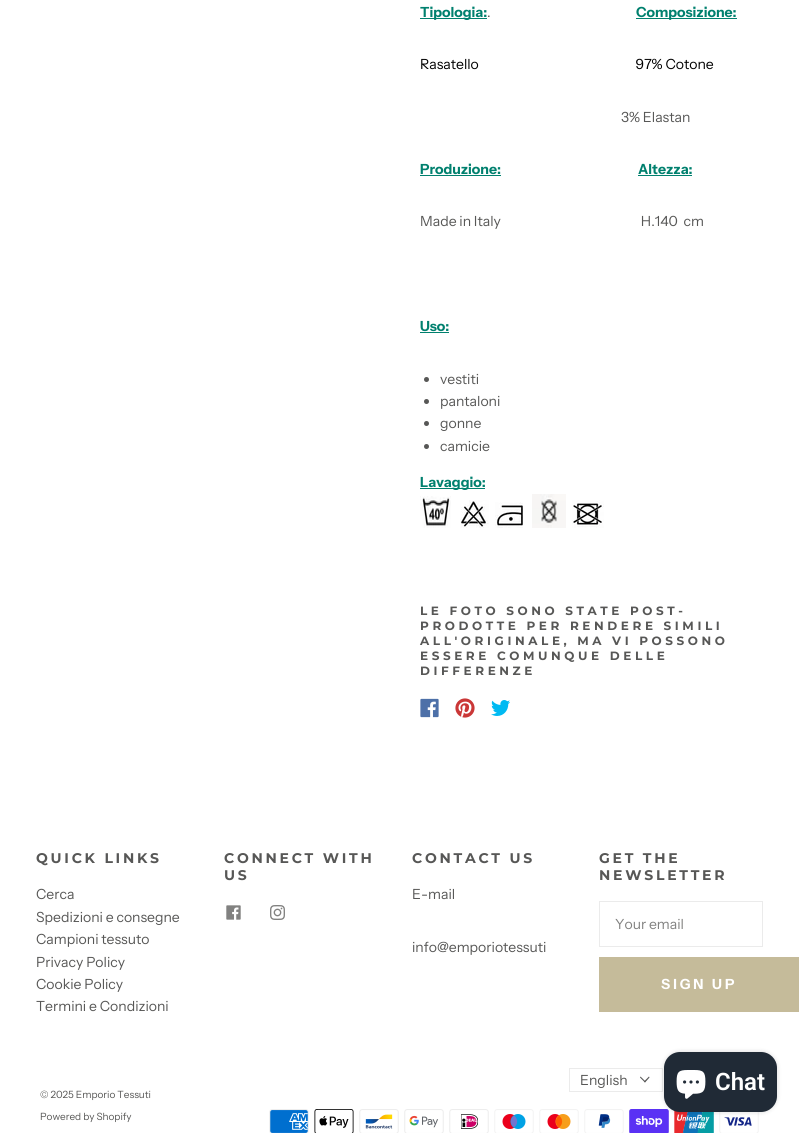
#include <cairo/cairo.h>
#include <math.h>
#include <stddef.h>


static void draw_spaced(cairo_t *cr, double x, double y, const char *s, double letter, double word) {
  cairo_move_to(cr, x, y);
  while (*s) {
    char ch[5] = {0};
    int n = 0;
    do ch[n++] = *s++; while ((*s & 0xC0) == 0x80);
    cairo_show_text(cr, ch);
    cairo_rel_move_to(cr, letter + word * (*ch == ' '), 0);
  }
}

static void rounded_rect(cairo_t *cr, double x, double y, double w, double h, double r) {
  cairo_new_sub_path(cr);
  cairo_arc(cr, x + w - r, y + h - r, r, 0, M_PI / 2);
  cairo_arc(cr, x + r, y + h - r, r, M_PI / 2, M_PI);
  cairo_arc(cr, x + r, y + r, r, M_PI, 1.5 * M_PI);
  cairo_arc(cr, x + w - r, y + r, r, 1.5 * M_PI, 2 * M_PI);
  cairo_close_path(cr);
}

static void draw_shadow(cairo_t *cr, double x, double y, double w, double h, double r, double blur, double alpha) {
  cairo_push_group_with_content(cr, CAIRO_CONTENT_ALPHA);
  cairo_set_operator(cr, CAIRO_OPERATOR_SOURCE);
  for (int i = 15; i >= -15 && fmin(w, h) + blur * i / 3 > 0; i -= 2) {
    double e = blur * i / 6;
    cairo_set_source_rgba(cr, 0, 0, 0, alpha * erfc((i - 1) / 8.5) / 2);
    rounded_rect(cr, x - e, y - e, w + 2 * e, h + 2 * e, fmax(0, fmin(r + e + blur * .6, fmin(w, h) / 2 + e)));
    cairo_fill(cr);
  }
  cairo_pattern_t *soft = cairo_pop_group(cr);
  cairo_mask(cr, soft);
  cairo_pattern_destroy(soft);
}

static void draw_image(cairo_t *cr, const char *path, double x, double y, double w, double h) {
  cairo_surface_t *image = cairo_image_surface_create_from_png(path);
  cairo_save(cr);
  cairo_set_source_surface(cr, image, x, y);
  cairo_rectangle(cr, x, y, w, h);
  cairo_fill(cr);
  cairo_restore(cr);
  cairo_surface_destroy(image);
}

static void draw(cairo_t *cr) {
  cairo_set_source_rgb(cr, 1, 1, 1);
  cairo_paint(cr);
  cairo_set_source_rgb(cr, 0, 128 / 255.0, 110 / 255.0);
  cairo_rectangle(cr, 420, 18, 67, 1);
  cairo_fill(cr);
  cairo_rectangle(cr, 636, 18, 101, 1);
  cairo_fill(cr);
  cairo_rectangle(cr, 420, 175, 81, 1);
  cairo_fill(cr);
  cairo_rectangle(cr, 638, 175, 54, 1);
  cairo_fill(cr);
  cairo_rectangle(cr, 420, 332, 29, 1);
  cairo_fill(cr);
  cairo_set_source_rgb(cr, 87 / 255.0, 87 / 255.0, 86 / 255.0);
  cairo_arc(cr, 426.5, 379.5, 2.5, 0, 2 * M_PI);
  cairo_fill(cr);
  cairo_arc(cr, 426.5, 401.5, 2.5, 0, 2 * M_PI);
  cairo_fill(cr);
  cairo_arc(cr, 426.5, 423.5, 2.5, 0, 2 * M_PI);
  cairo_fill(cr);
  cairo_arc(cr, 426.5, 446.5, 2.5, 0, 2 * M_PI);
  cairo_fill(cr);
  cairo_set_source_rgb(cr, 0, 128 / 255.0, 110 / 255.0);
  cairo_rectangle(cr, 420, 488, 65, 1);
  cairo_fill(cr);
  draw_image(cr, "images/1.png", 420, 496, 31, 32);
  draw_image(cr, "images/2.png", 460, 500, 29, 28);
  draw_image(cr, "images/3.png", 495, 502, 28, 26);
  draw_image(cr, "images/4.png", 532, 494, 34, 34);
  draw_image(cr, "images/5.png", 572, 500, 32, 28);
  draw_image(cr, "images/6.png", 420, 698, 19, 20);
  draw_image(cr, "images/7.png", 455, 698, 20, 20);
  draw_image(cr, "images/8.png", 491, 700, 19, 16);
  draw_image(cr, "images/9.png", 226, 905, 15, 15);
  draw_image(cr, "images/10.png", 270, 905, 15, 15);
  cairo_rectangle(cr, 599.5, 901.5, 163, 45);
  cairo_set_source_rgb(cr, 235 / 255.0, 235 / 255.0, 235 / 255.0);
  cairo_set_line_width(cr, 1);
  cairo_stroke(cr);
  cairo_set_source_rgb(cr, 197 / 255.0, 187 / 255.0, 154 / 255.0);
  cairo_rectangle(cr, 599, 957, 200, 55);
  cairo_fill(cr);
  cairo_rectangle(cr, 569.5, 1068.5, 93, 23);
  cairo_set_source_rgb(cr, 235 / 255.0, 235 / 255.0, 235 / 255.0);
  cairo_stroke(cr);
  cairo_set_source_rgb(cr, 87 / 255.0, 87 / 255.0, 86 / 255.0);
  cairo_new_path(cr);
  cairo_move_to(cr, 649, 1076.5);
  cairo_line_to(cr, 649.5, 1077.5);
  cairo_line_to(cr, 645, 1082.5);
  cairo_line_to(cr, 644, 1081.5);
  cairo_close_path(cr);
  cairo_fill(cr);
  cairo_new_path(cr);
  cairo_move_to(cr, 640.5, 1076.5);
  cairo_line_to(cr, 645.5, 1081.5);
  cairo_line_to(cr, 645, 1082.5);
  cairo_line_to(cr, 640, 1077.5);
  cairo_close_path(cr);
  cairo_fill(cr);
  draw_image(cr, "images/11.png", 269, 1109, 40, 24);
  draw_image(cr, "images/12.png", 314, 1109, 40, 24);
  draw_image(cr, "images/13.png", 359, 1109, 40, 24);
  draw_image(cr, "images/14.png", 404, 1109, 40, 24);
  draw_image(cr, "images/15.png", 449, 1109, 40, 24);
  draw_image(cr, "images/16.png", 494, 1109, 40, 24);
  draw_image(cr, "images/17.png", 539, 1109, 40, 24);
  draw_image(cr, "images/18.png", 584, 1109, 40, 24);
  draw_image(cr, "images/19.png", 629, 1109, 40, 24);
  draw_image(cr, "images/20.png", 674, 1110, 40, 23);
  draw_image(cr, "images/21.png", 719, 1112, 40, 21);
  cairo_set_source_rgb(cr, 0, 0, 0);
  draw_shadow(cr, 664, 1052, 113, 60, 16, 2.5, 0.15);
  cairo_set_source_rgb(cr, 32 / 255.0, 42 / 255.0, 54 / 255.0);
  rounded_rect(cr, 664, 1052, 113, 60, 16);
  cairo_fill(cr);
  draw_image(cr, "images/22.png", 676, 1070, 30, 29);
  cairo_select_font_face(cr, "Instrument Sans", CAIRO_FONT_SLANT_NORMAL, CAIRO_FONT_WEIGHT_BOLD);
  cairo_set_font_size(cr, 14);
  cairo_set_source_rgb(cr, 0, 128 / 255.0, 110 / 255.0);
  cairo_move_to(cr, 420, 17);
  cairo_show_text(cr, "Tipologia:");
  cairo_select_font_face(cr, "Instrument Sans", CAIRO_FONT_SLANT_NORMAL, CAIRO_FONT_WEIGHT_NORMAL);
  cairo_set_source_rgb(cr, 87 / 255.0, 87 / 255.0, 86 / 255.0);
  cairo_move_to(cr, 487, 17);
  cairo_show_text(cr, ".");
  cairo_select_font_face(cr, "Instrument Sans", CAIRO_FONT_SLANT_NORMAL, CAIRO_FONT_WEIGHT_BOLD);
  cairo_set_source_rgb(cr, 0, 128 / 255.0, 110 / 255.0);
  cairo_move_to(cr, 636, 17);
  cairo_show_text(cr, "Composizione:");
  cairo_select_font_face(cr, "Instrument Sans", CAIRO_FONT_SLANT_NORMAL, CAIRO_FONT_WEIGHT_NORMAL);
  cairo_set_source_rgb(cr, 0, 0, 0);
  cairo_move_to(cr, 420, 69);
  cairo_show_text(cr, "Rasatello                                                        97% Cotone");
  cairo_set_source_rgb(cr, 87 / 255.0, 87 / 255.0, 86 / 255.0);
  cairo_move_to(cr, 621, 122);
  cairo_show_text(cr, "3% Elastan");
  cairo_select_font_face(cr, "Instrument Sans", CAIRO_FONT_SLANT_NORMAL, CAIRO_FONT_WEIGHT_BOLD);
  cairo_set_source_rgb(cr, 0, 128 / 255.0, 110 / 255.0);
  cairo_move_to(cr, 420, 174);
  cairo_show_text(cr, "Produzione:");
  cairo_move_to(cr, 638, 174);
  cairo_show_text(cr, "Altezza:");
  cairo_select_font_face(cr, "Instrument Sans", CAIRO_FONT_SLANT_NORMAL, CAIRO_FONT_WEIGHT_NORMAL);
  cairo_set_source_rgb(cr, 87 / 255.0, 87 / 255.0, 86 / 255.0);
  cairo_move_to(cr, 420, 226);
  cairo_show_text(cr, "Made in Italy                                                  H.140  cm");
  cairo_select_font_face(cr, "Instrument Sans", CAIRO_FONT_SLANT_NORMAL, CAIRO_FONT_WEIGHT_BOLD);
  cairo_set_source_rgb(cr, 0, 128 / 255.0, 110 / 255.0);
  cairo_move_to(cr, 420, 331);
  cairo_show_text(cr, "Uso:");
  cairo_select_font_face(cr, "Instrument Sans", CAIRO_FONT_SLANT_NORMAL, CAIRO_FONT_WEIGHT_NORMAL);
  cairo_set_source_rgb(cr, 87 / 255.0, 87 / 255.0, 86 / 255.0);
  cairo_move_to(cr, 440, 384);
  cairo_show_text(cr, "vestiti");
  cairo_move_to(cr, 440, 406);
  cairo_show_text(cr, "pantaloni");
  cairo_move_to(cr, 440, 428);
  cairo_show_text(cr, "gonne");
  cairo_move_to(cr, 440, 451);
  cairo_show_text(cr, "camicie");
  cairo_select_font_face(cr, "Instrument Sans", CAIRO_FONT_SLANT_NORMAL, CAIRO_FONT_WEIGHT_BOLD);
  cairo_set_source_rgb(cr, 0, 128 / 255.0, 110 / 255.0);
  cairo_move_to(cr, 420, 487);
  cairo_show_text(cr, "Lavaggio:");
  cairo_select_font_face(cr, "Montserrat", CAIRO_FONT_SLANT_NORMAL, CAIRO_FONT_WEIGHT_BOLD);
  cairo_set_font_size(cr, 12);
  cairo_set_source_rgb(cr, 87 / 255.0, 87 / 255.0, 86 / 255.0);
  draw_spaced(cr, 420, 615, "LE FOTO SONO STATE POST-", 3.6, 0);
  draw_spaced(cr, 420, 630, "PRODOTTE PER RENDERE SIMILI", 3.6, 0);
  draw_spaced(cr, 420, 645, "ALL'ORIGINALE, MA VI POSSONO", 3.6, 0);
  draw_spaced(cr, 420, 660, "ESSERE COMUNQUE DELLE", 3.6, 0);
  draw_spaced(cr, 420, 675, "DIFFERENZE", 3.6, 0);
  cairo_set_font_size(cr, 14);
  draw_spaced(cr, 36, 863, "QUICK LINKS", 2.75, 0);
  cairo_select_font_face(cr, "Instrument Sans", CAIRO_FONT_SLANT_NORMAL, CAIRO_FONT_WEIGHT_NORMAL);
  cairo_move_to(cr, 36, 899);
  cairo_show_text(cr, "Cerca");
  cairo_move_to(cr, 36, 922);
  cairo_show_text(cr, "Spedizioni e consegne");
  cairo_move_to(cr, 36, 944);
  cairo_show_text(cr, "Campioni tessuto");
  cairo_move_to(cr, 36, 967);
  cairo_show_text(cr, "Privacy Policy");
  cairo_move_to(cr, 36, 989);
  cairo_show_text(cr, "Cookie Policy");
  cairo_move_to(cr, 36, 1011);
  cairo_show_text(cr, "Termini e Condizioni");
  cairo_select_font_face(cr, "Montserrat", CAIRO_FONT_SLANT_NORMAL, CAIRO_FONT_WEIGHT_BOLD);
  draw_spaced(cr, 224, 863, "CONNECT WITH", 2.75, 0);
  draw_spaced(cr, 224, 880, "US", 2.75, 0);
  draw_spaced(cr, 412, 863, "CONTACT US", 2.75, 0);
  cairo_select_font_face(cr, "Instrument Sans", CAIRO_FONT_SLANT_NORMAL, CAIRO_FONT_WEIGHT_NORMAL);
  cairo_move_to(cr, 412, 899);
  cairo_show_text(cr, "E-mail");
  cairo_move_to(cr, 412, 952);
  cairo_show_text(cr, "info@emporiotessuti");
  cairo_select_font_face(cr, "Montserrat", CAIRO_FONT_SLANT_NORMAL, CAIRO_FONT_WEIGHT_BOLD);
  draw_spaced(cr, 599, 863, "GET THE", 2.75, 0);
  draw_spaced(cr, 599, 880, "NEWSLETTER", 2.75, 0);
  cairo_select_font_face(cr, "Instrument Sans", CAIRO_FONT_SLANT_NORMAL, CAIRO_FONT_WEIGHT_NORMAL);
  cairo_set_source_rgb(cr, 129 / 255.0, 129 / 255.0, 128 / 255.0);
  cairo_move_to(cr, 615, 929);
  cairo_show_text(cr, "Your email");
  cairo_select_font_face(cr, "Instrument Sans", CAIRO_FONT_SLANT_NORMAL, CAIRO_FONT_WEIGHT_BOLD);
  cairo_set_source_rgb(cr, 1, 1, 1);
  draw_spaced(cr, 661, 989, "SIGN UP", 3, 0);
  cairo_select_font_face(cr, "Instrument Sans", CAIRO_FONT_SLANT_NORMAL, CAIRO_FONT_WEIGHT_NORMAL);
  cairo_set_source_rgb(cr, 87 / 255.0, 87 / 255.0, 86 / 255.0);
  cairo_move_to(cr, 580, 1085);
  cairo_show_text(cr, "English");
  cairo_set_font_size(cr, 10);
  cairo_move_to(cr, 40, 1098);
  cairo_show_text(cr, "© 2025 Emporio Tessuti");
  cairo_move_to(cr, 40, 1120);
  cairo_show_text(cr, "Powered by Shopify");
  cairo_select_font_face(cr, "Roboto SemiBold", CAIRO_FONT_SLANT_NORMAL, CAIRO_FONT_WEIGHT_NORMAL);
  cairo_set_font_size(cr, 24);
  cairo_set_source_rgb(cr, 1, 1, 1);
  cairo_move_to(cr, 715, 1090);
  cairo_show_text(cr, "Chat");
}

int main(void) {
  cairo_surface_t *surface = cairo_image_surface_create(CAIRO_FORMAT_RGB24, 799, 1133);
  cairo_t *cr = cairo_create(surface);
  cairo_font_options_t *options = cairo_font_options_create();
  cairo_font_options_set_hint_metrics(options, CAIRO_HINT_METRICS_OFF);
  cairo_font_options_set_hint_style(options, CAIRO_HINT_STYLE_NONE);
  cairo_set_font_options(cr, options);
  cairo_set_miter_limit(cr, 4);
  draw(cr);
  cairo_surface_write_to_png(surface, "out.png");
  cairo_font_options_destroy(options);
  cairo_destroy(cr);
  cairo_surface_destroy(surface);
  return 0;
}
